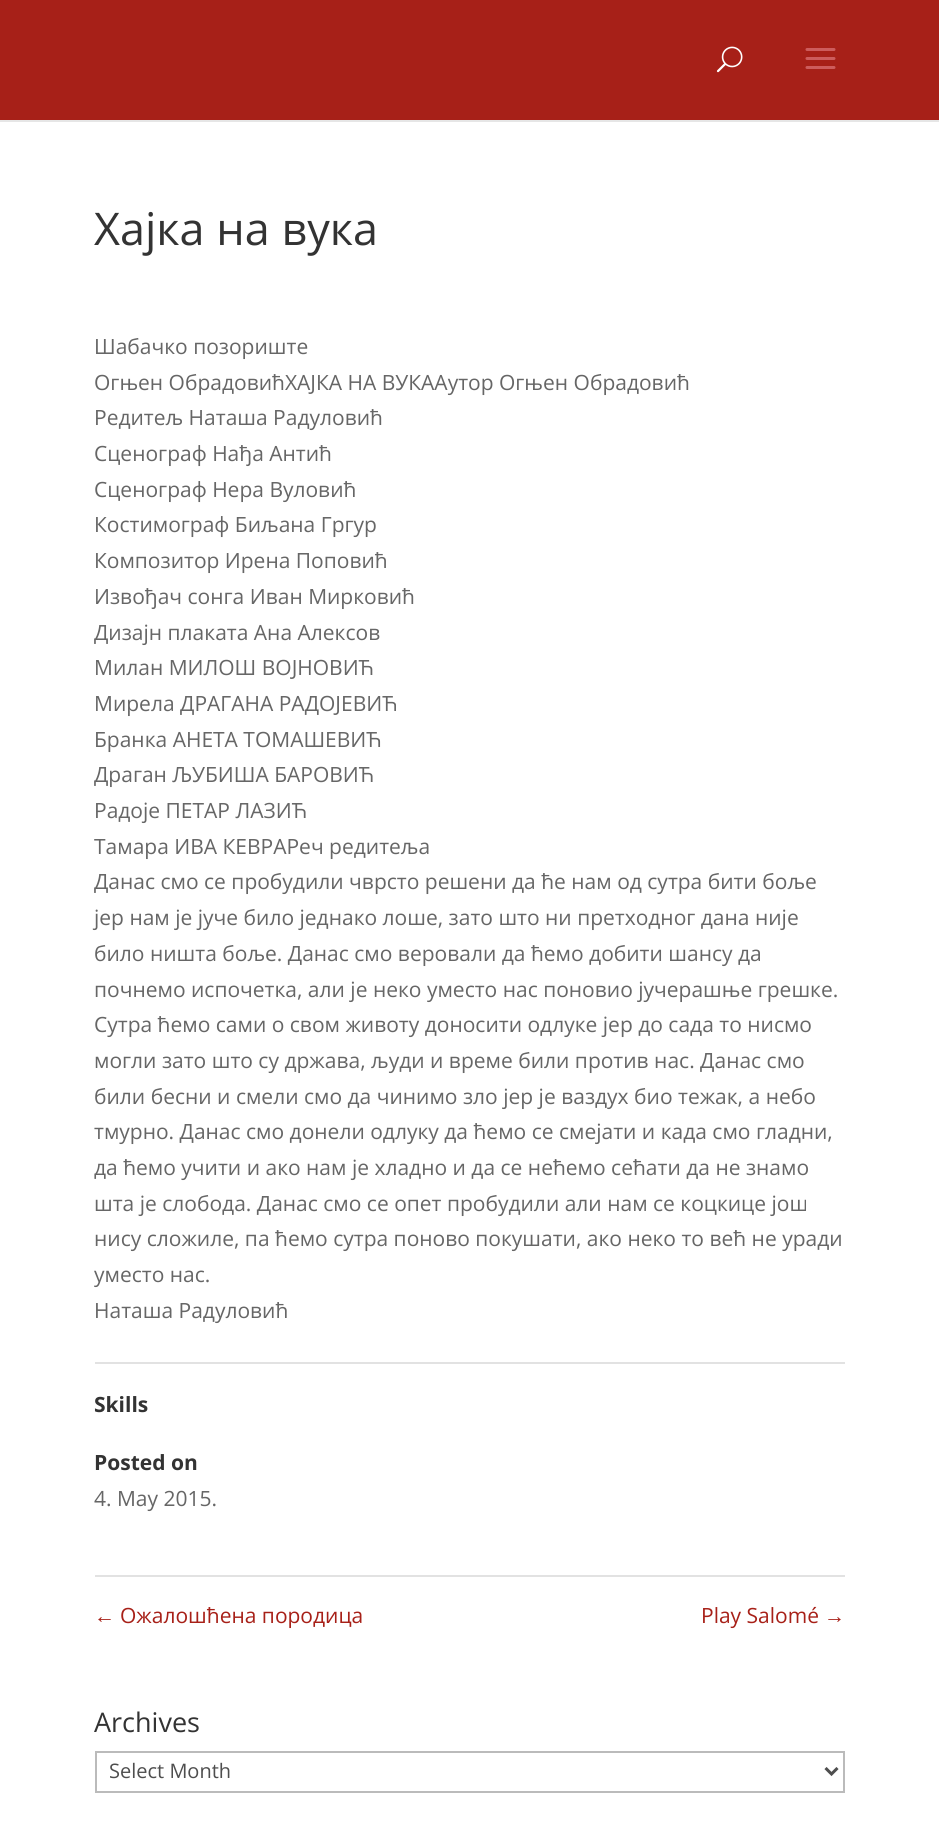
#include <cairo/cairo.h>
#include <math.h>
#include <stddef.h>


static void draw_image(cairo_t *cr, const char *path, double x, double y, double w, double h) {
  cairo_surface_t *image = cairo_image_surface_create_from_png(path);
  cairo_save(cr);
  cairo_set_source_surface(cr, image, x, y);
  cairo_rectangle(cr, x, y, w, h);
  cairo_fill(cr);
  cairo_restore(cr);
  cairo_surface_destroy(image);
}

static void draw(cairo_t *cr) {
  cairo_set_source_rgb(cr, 1, 1, 1);
  cairo_paint(cr);
  cairo_set_source_rgb(cr, 230 / 255.0, 230 / 255.0, 230 / 255.0);
  cairo_rectangle(cr, 0, 120, 939, 2);
  cairo_fill(cr);
  cairo_set_source_rgb(cr, 167 / 255.0, 32 / 255.0, 24 / 255.0);
  cairo_rectangle(cr, 0, 0, 939, 120);
  cairo_fill(cr);
  draw_image(cr, "images/1.png", 716, 46, 27, 27);
  draw_image(cr, "images/2.png", 805, 48, 31, 21);
  cairo_set_source_rgb(cr, 226 / 255.0, 226 / 255.0, 226 / 255.0);
  cairo_rectangle(cr, 95, 1362, 750, 2);
  cairo_fill(cr);
  cairo_rectangle(cr, 95, 1575, 750, 2);
  cairo_fill(cr);
  cairo_rectangle(cr, 96, 1752, 748, 40);
  cairo_set_source_rgb(cr, 187 / 255.0, 187 / 255.0, 187 / 255.0);
  cairo_stroke(cr);
  cairo_new_path(cr);
  cairo_move_to(cr, 825.5, 1768);
  cairo_line_to(cr, 831.5, 1774);
  cairo_line_to(cr, 837.5, 1768);
  cairo_set_source_rgb(cr, 78 / 255.0, 78 / 255.0, 78 / 255.0);
  cairo_set_line_width(cr, 3);
  cairo_stroke(cr);
  cairo_select_font_face(cr, "Open Sans", CAIRO_FONT_SLANT_NORMAL, CAIRO_FONT_WEIGHT_NORMAL);
  cairo_set_font_size(cr, 45);
  cairo_set_source_rgb(cr, 51 / 255.0, 51 / 255.0, 51 / 255.0);
  cairo_move_to(cr, 94, 245);
  cairo_show_text(cr, "Хајка на вука");
  cairo_set_font_size(cr, 21);
  cairo_set_source_rgb(cr, 102 / 255.0, 102 / 255.0, 102 / 255.0);
  cairo_move_to(cr, 94, 354);
  cairo_show_text(cr, "Шабачко позориште");
  cairo_move_to(cr, 94, 390);
  cairo_show_text(cr, "Огњен ОбрадовићХАЈКА НА ВУКААутор Огњен Обрадовић");
  cairo_move_to(cr, 94, 425);
  cairo_show_text(cr, "Редитељ Наташа Радуловић");
  cairo_move_to(cr, 94, 461);
  cairo_show_text(cr, "Сценограф Нађа Антић");
  cairo_move_to(cr, 94, 497);
  cairo_show_text(cr, "Сценограф Нера Вуловић");
  cairo_move_to(cr, 94, 532);
  cairo_show_text(cr, "Костимограф Биљана Гргур");
  cairo_move_to(cr, 94, 568);
  cairo_show_text(cr, "Композитор Ирена Поповић");
  cairo_move_to(cr, 94, 604);
  cairo_show_text(cr, "Извођач сонга Иван Мирковић");
  cairo_move_to(cr, 94, 640);
  cairo_show_text(cr, "Дизајн плаката Ана Алексов");
  cairo_move_to(cr, 94, 675);
  cairo_show_text(cr, "Милан МИЛОШ ВОЈНОВИЋ");
  cairo_move_to(cr, 94, 711);
  cairo_show_text(cr, "Мирела ДРАГАНА РАДОЈЕВИЋ");
  cairo_move_to(cr, 94, 747);
  cairo_show_text(cr, "Бранка АНЕТА ТОМАШЕВИЋ");
  cairo_move_to(cr, 94, 782);
  cairo_show_text(cr, "Драган ЉУБИША БАРОВИЋ");
  cairo_move_to(cr, 94, 818);
  cairo_show_text(cr, "Радоје ПЕТАР ЛАЗИЋ");
  cairo_move_to(cr, 94, 854);
  cairo_show_text(cr, "Тамара ИВА КЕВРАРеч редитеља");
  cairo_move_to(cr, 94, 889);
  cairo_show_text(cr, "Данас смо се пробудили чврсто решени да ће нам од сутра бити боље");
  cairo_move_to(cr, 94, 925);
  cairo_show_text(cr, "јер нам је јуче било једнако лоше, зато што ни претходног дана није");
  cairo_move_to(cr, 94, 961);
  cairo_show_text(cr, "било ништа боље. Данас смо веровали да ћемо добити шансу да");
  cairo_move_to(cr, 94, 997);
  cairo_show_text(cr, "почнемо испочетка, али је неко уместо нас поновио јучерашње грешке.");
  cairo_move_to(cr, 94, 1032);
  cairo_show_text(cr, "Сутра ћемо сами о свом животу доносити одлуке јер до сада то нисмо");
  cairo_move_to(cr, 94, 1068);
  cairo_show_text(cr, "могли зато што су држава, људи и време били против нас. Данас смо");
  cairo_move_to(cr, 94, 1104);
  cairo_show_text(cr, "били бесни и смели смо да чинимо зло јер је ваздух био тежак, а небо");
  cairo_move_to(cr, 94, 1139);
  cairo_show_text(cr, "тмурно. Данас смо донели одлуку да ћемо се смејати и када смо гладни,");
  cairo_move_to(cr, 94, 1175);
  cairo_show_text(cr, "да ћемо учити и ако нам је хладно и да се нећемо сећати да не знамо");
  cairo_move_to(cr, 94, 1211);
  cairo_show_text(cr, "шта је слобода. Данас смо се опет пробудили али нам се коцкице још");
  cairo_move_to(cr, 94, 1246);
  cairo_show_text(cr, "нису сложиле, па ћемо сутра поново покушати, ако неко то већ не уради");
  cairo_move_to(cr, 94, 1282);
  cairo_show_text(cr, "уместо нас.");
  cairo_move_to(cr, 94, 1318);
  cairo_show_text(cr, "Наташа Радуловић");
  cairo_select_font_face(cr, "Open Sans", CAIRO_FONT_SLANT_NORMAL, CAIRO_FONT_WEIGHT_BOLD);
  cairo_set_source_rgb(cr, 51 / 255.0, 51 / 255.0, 51 / 255.0);
  cairo_move_to(cr, 94, 1412);
  cairo_show_text(cr, "Skills");
  cairo_move_to(cr, 94, 1470);
  cairo_show_text(cr, "Posted on");
  cairo_select_font_face(cr, "Open Sans", CAIRO_FONT_SLANT_NORMAL, CAIRO_FONT_WEIGHT_NORMAL);
  cairo_set_source_rgb(cr, 102 / 255.0, 102 / 255.0, 102 / 255.0);
  cairo_move_to(cr, 94, 1506);
  cairo_show_text(cr, "4. May 2015.");
  cairo_select_font_face(cr, "Liberation Sans", CAIRO_FONT_SLANT_NORMAL, CAIRO_FONT_WEIGHT_NORMAL);
  cairo_set_source_rgb(cr, 167 / 255.0, 32 / 255.0, 24 / 255.0);
  cairo_move_to(cr, 94, 1623);
  cairo_show_text(cr, "←");
  cairo_select_font_face(cr, "Open Sans", CAIRO_FONT_SLANT_NORMAL, CAIRO_FONT_WEIGHT_NORMAL);
  cairo_move_to(cr, 120, 1623);
  cairo_show_text(cr, "Ожалошћена породица");
  cairo_move_to(cr, 701, 1623);
  cairo_show_text(cr, "Play Salomé");
  cairo_select_font_face(cr, "Liberation Sans", CAIRO_FONT_SLANT_NORMAL, CAIRO_FONT_WEIGHT_NORMAL);
  cairo_move_to(cr, 824, 1623);
  cairo_show_text(cr, "→");
  cairo_select_font_face(cr, "Open Sans", CAIRO_FONT_SLANT_NORMAL, CAIRO_FONT_WEIGHT_NORMAL);
  cairo_set_font_size(cr, 27);
  cairo_set_source_rgb(cr, 51 / 255.0, 51 / 255.0, 51 / 255.0);
  cairo_move_to(cr, 94, 1732);
  cairo_show_text(cr, "Archives");
  cairo_set_font_size(cr, 20);
  cairo_set_source_rgb(cr, 78 / 255.0, 78 / 255.0, 78 / 255.0);
  cairo_move_to(cr, 109, 1778);
  cairo_show_text(cr, "Select Month");
}

int main(void) {
  cairo_surface_t *surface = cairo_image_surface_create(CAIRO_FORMAT_RGB24, 939, 1835);
  cairo_t *cr = cairo_create(surface);
  cairo_font_options_t *options = cairo_font_options_create();
  cairo_font_options_set_hint_metrics(options, CAIRO_HINT_METRICS_OFF);
  cairo_font_options_set_hint_style(options, CAIRO_HINT_STYLE_NONE);
  cairo_set_font_options(cr, options);
  cairo_set_miter_limit(cr, 4);
  draw(cr);
  cairo_surface_write_to_png(surface, "out.png");
  cairo_font_options_destroy(options);
  cairo_destroy(cr);
  cairo_surface_destroy(surface);
  return 0;
}
